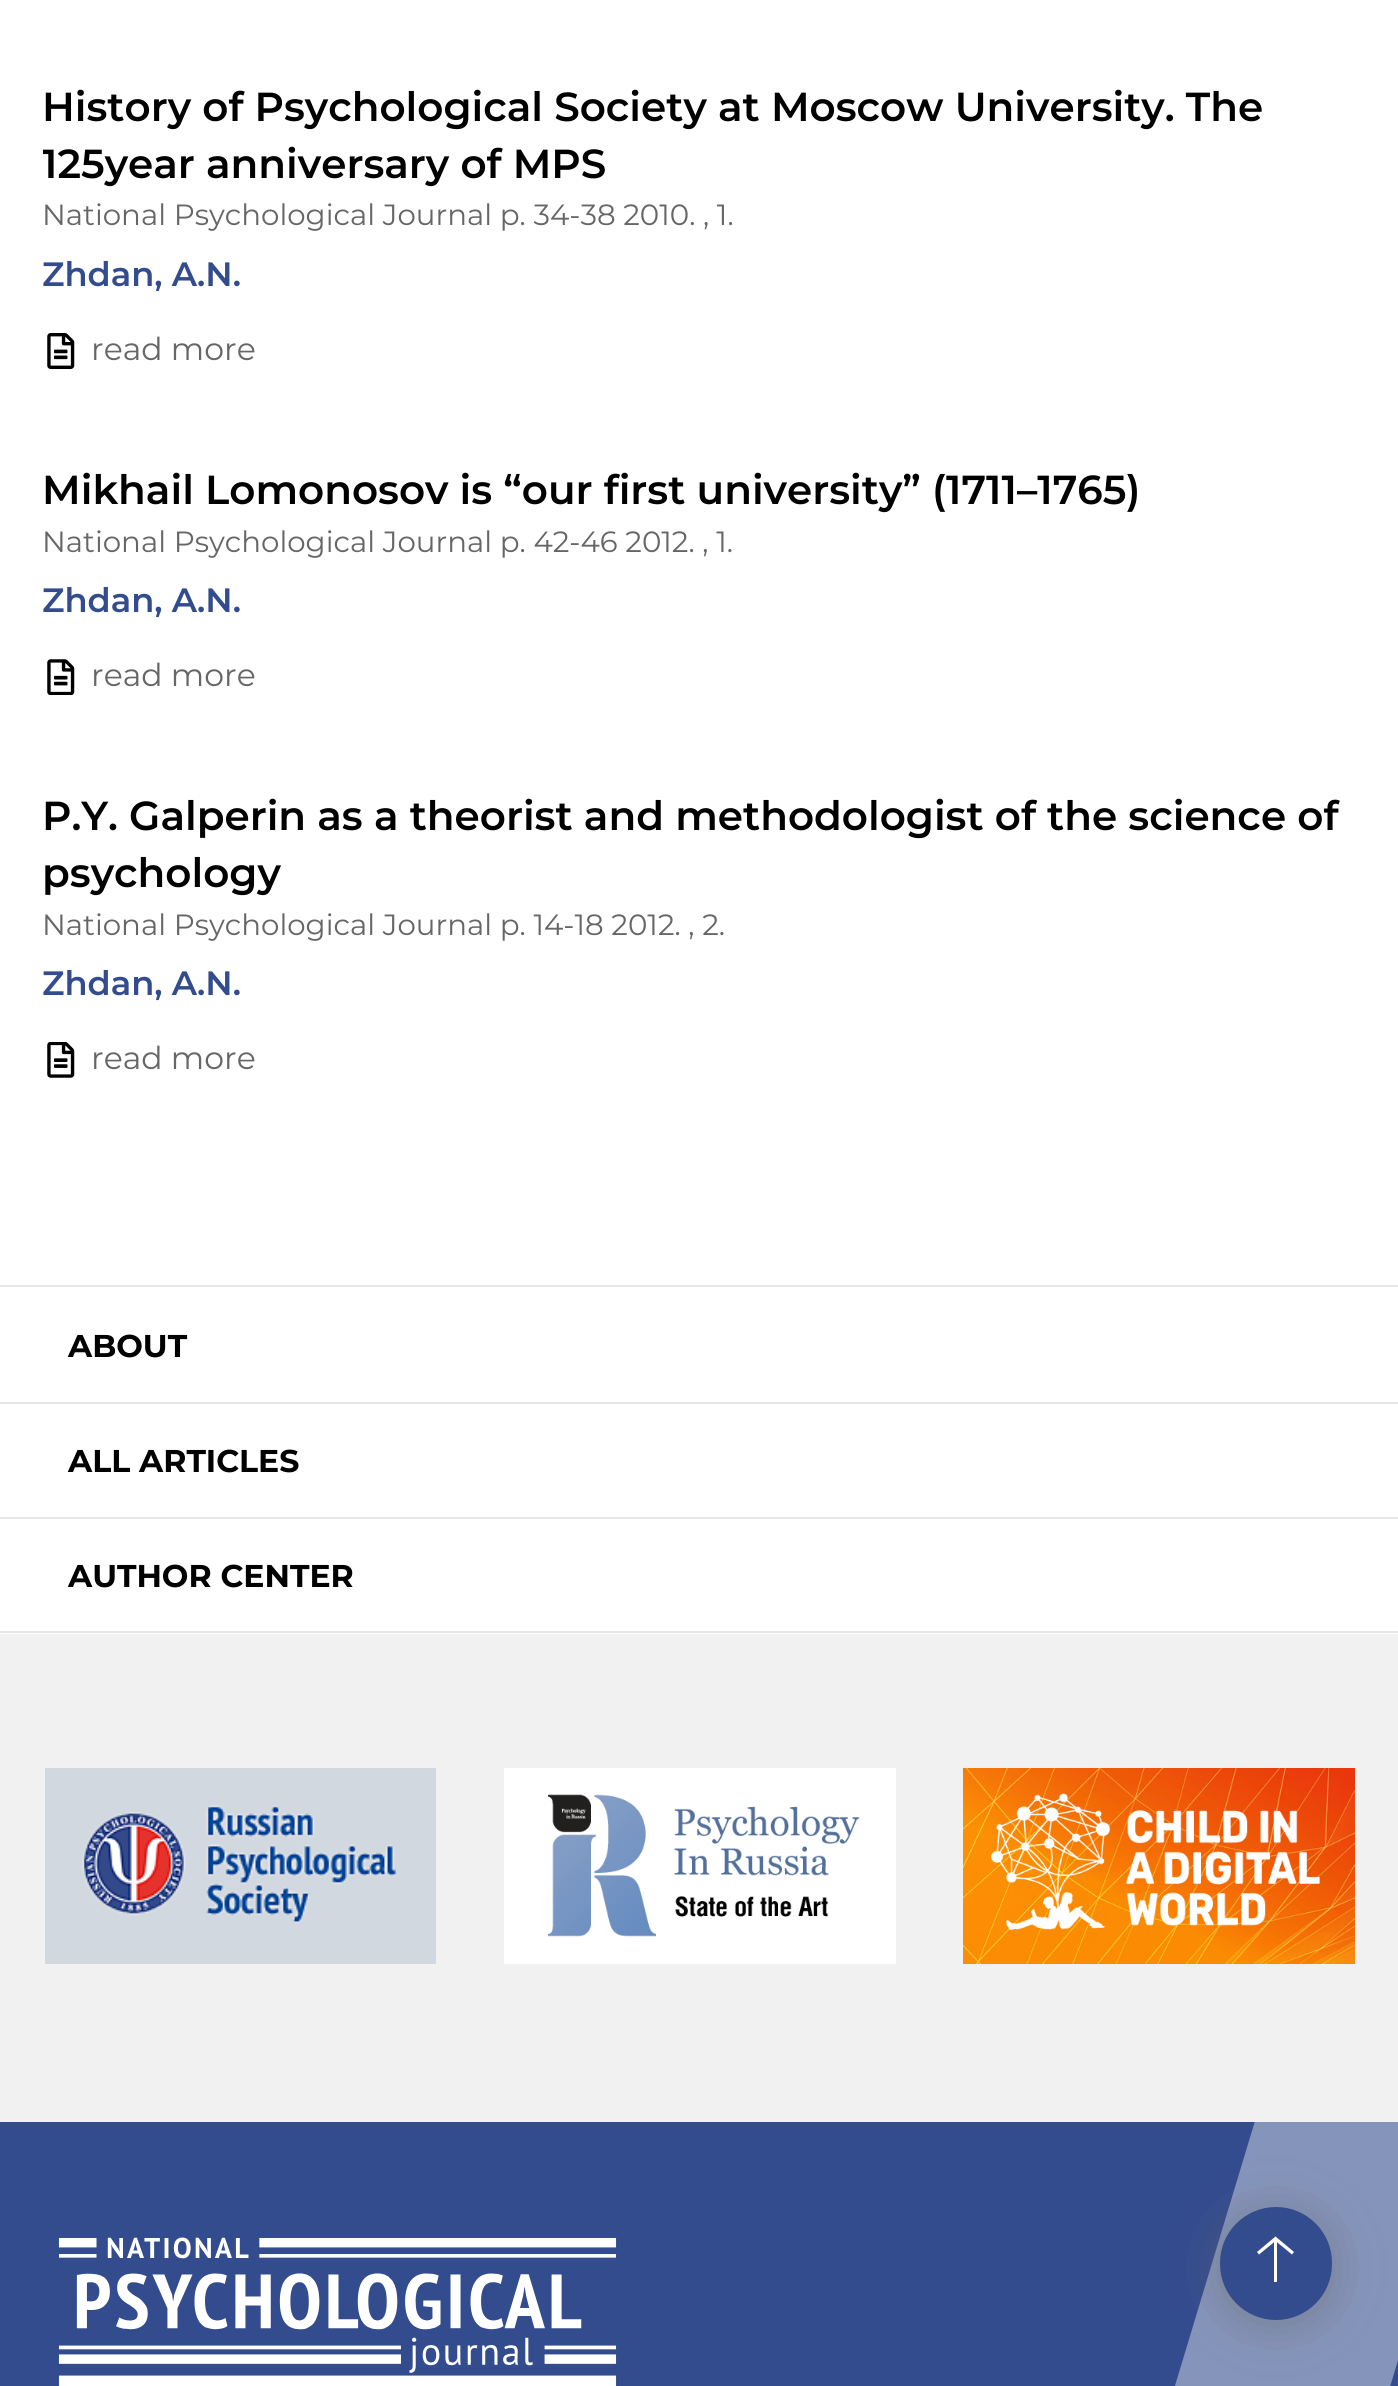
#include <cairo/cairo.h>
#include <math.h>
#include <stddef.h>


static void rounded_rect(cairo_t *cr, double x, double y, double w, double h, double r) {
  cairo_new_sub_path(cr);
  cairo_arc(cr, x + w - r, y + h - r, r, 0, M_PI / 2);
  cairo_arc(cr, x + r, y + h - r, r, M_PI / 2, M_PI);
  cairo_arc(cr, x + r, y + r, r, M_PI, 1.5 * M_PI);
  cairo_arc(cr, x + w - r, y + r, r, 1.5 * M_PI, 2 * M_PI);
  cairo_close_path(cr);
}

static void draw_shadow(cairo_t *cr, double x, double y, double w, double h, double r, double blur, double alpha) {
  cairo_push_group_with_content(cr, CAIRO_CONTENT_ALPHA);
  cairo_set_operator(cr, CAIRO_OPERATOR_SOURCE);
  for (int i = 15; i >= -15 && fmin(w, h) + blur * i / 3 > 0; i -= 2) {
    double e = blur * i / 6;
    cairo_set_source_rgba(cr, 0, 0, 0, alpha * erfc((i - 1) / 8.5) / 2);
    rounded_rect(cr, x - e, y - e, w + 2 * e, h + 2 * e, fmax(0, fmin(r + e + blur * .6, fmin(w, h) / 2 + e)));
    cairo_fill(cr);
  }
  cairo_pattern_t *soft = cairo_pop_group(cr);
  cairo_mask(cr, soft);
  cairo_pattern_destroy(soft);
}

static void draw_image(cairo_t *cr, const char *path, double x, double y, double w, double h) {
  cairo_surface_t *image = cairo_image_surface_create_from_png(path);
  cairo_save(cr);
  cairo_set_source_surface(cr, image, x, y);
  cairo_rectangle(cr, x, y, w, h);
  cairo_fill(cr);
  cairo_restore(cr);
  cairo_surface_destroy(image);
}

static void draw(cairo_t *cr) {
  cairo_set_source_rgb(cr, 1, 1, 1);
  cairo_paint(cr);
  draw_image(cr, "images/1.png", 47, 333, 28, 36);
  draw_image(cr, "images/2.png", 47, 659, 28, 36);
  draw_image(cr, "images/3.png", 47, 1042, 28, 36);
  cairo_set_source_rgb(cr, 230 / 255.0, 230 / 255.0, 230 / 255.0);
  cairo_rectangle(cr, 0, 1285, 1398, 2);
  cairo_fill(cr);
  cairo_rectangle(cr, 0, 1402, 1398, 2);
  cairo_fill(cr);
  cairo_rectangle(cr, 0, 1517, 1398, 2);
  cairo_fill(cr);
  cairo_rectangle(cr, 0, 1631, 1398, 2);
  cairo_fill(cr);
  cairo_set_source_rgb(cr, 241 / 255.0, 241 / 255.0, 241 / 255.0);
  cairo_rectangle(cr, 0, 1634, 1398, 488);
  cairo_fill(cr);
  draw_image(cr, "images/4.png", 45, 1768, 391, 196);
  draw_image(cr, "images/5.png", 504, 1768, 392, 196);
  draw_image(cr, "images/6.png", 963, 1768, 392, 196);
  cairo_set_source_rgb(cr, 51 / 255.0, 76 / 255.0, 142 / 255.0);
  cairo_rectangle(cr, 0, 2122, 1398, 264);
  cairo_fill(cr);
  cairo_save(cr);
  cairo_rectangle(cr, 932, 2122, 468, 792);
  cairo_clip(cr);
  cairo_set_source_rgb(cr, 133 / 255.0, 148 / 255.0, 187 / 255.0);
  cairo_new_path(cr);
  cairo_move_to(cr, 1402, 2121);
  cairo_line_to(cr, 1255, 2121);
  cairo_line_to(cr, 940, 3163);
  cairo_line_to(cr, 1156, 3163);
  cairo_line_to(cr, 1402, 2347);
  cairo_close_path(cr);
  cairo_fill(cr);
  cairo_restore(cr);
  draw_image(cr, "images/7.png", 58, 2237, 559, 149);
  cairo_set_source_rgb(cr, 105 / 255.0, 105 / 255.0, 105 / 255.0);
  draw_shadow(cr, 1220, 2212, 112, 112, 56, 22.5, 0.5);
  cairo_set_source_rgb(cr, 51 / 255.0, 76 / 255.0, 142 / 255.0);
  rounded_rect(cr, 1220, 2207, 112, 113, 56);
  cairo_fill(cr);
  cairo_set_source_rgb(cr, 1, 1, 1);
  cairo_new_path(cr);
  cairo_move_to(cr, 1292, 2254.5);
  cairo_line_to(cr, 1275.5, 2241);
  cairo_line_to(cr, 1259, 2254.5);
  cairo_line_to(cr, 1257, 2252);
  cairo_line_to(cr, 1275.5, 2236.5);
  cairo_line_to(cr, 1294, 2252);
  cairo_close_path(cr);
  cairo_fill(cr);
  cairo_rectangle(cr, 1274, 2239, 3, 43);
  cairo_fill(cr);
  cairo_select_font_face(cr, "Montserrat SemiBold", CAIRO_FONT_SLANT_NORMAL, CAIRO_FONT_WEIGHT_NORMAL);
  cairo_set_font_size(cr, 40.5);
  cairo_set_source_rgb(cr, 0, 0, 0);
  cairo_move_to(cr, 42, 121);
  cairo_show_text(cr, "History of Psychological Society at Moscow University. The");
  cairo_save(cr);
  cairo_rectangle(cr, 43, 81, 1314, 293);
  cairo_clip(cr);
  cairo_move_to(cr, 42, 178);
  cairo_show_text(cr, "125year anniversary of MPS");
  cairo_restore(cr);
  cairo_select_font_face(cr, "Montserrat", CAIRO_FONT_SLANT_NORMAL, CAIRO_FONT_WEIGHT_NORMAL);
  cairo_set_font_size(cr, 29.25);
  cairo_set_source_rgb(cr, 102 / 255.0, 102 / 255.0, 102 / 255.0);
  cairo_move_to(cr, 42, 225);
  cairo_show_text(cr, "National Psychological Journal p. 34-38 2010. , 1.");
  cairo_select_font_face(cr, "Montserrat SemiBold", CAIRO_FONT_SLANT_NORMAL, CAIRO_FONT_WEIGHT_NORMAL);
  cairo_set_font_size(cr, 33.75);
  cairo_set_source_rgb(cr, 51 / 255.0, 76 / 255.0, 142 / 255.0);
  cairo_move_to(cr, 42, 286);
  cairo_show_text(cr, "Zhdan, A.N.");
  cairo_select_font_face(cr, "Montserrat", CAIRO_FONT_SLANT_NORMAL, CAIRO_FONT_WEIGHT_NORMAL);
  cairo_set_font_size(cr, 31.5);
  cairo_set_source_rgb(cr, 102 / 255.0, 102 / 255.0, 102 / 255.0);
  cairo_move_to(cr, 91, 360);
  cairo_show_text(cr, "read more");
  cairo_select_font_face(cr, "Montserrat SemiBold", CAIRO_FONT_SLANT_NORMAL, CAIRO_FONT_WEIGHT_NORMAL);
  cairo_set_font_size(cr, 40.5);
  cairo_set_source_rgb(cr, 0, 0, 0);
  cairo_move_to(cr, 42, 504);
  cairo_show_text(cr, "Mikhail Lomonosov is “our first university” (1711–1765)");
  cairo_select_font_face(cr, "Montserrat", CAIRO_FONT_SLANT_NORMAL, CAIRO_FONT_WEIGHT_NORMAL);
  cairo_set_font_size(cr, 29.25);
  cairo_set_source_rgb(cr, 102 / 255.0, 102 / 255.0, 102 / 255.0);
  cairo_move_to(cr, 42, 552);
  cairo_show_text(cr, "National Psychological Journal p. 42-46 2012. , 1.");
  cairo_select_font_face(cr, "Montserrat SemiBold", CAIRO_FONT_SLANT_NORMAL, CAIRO_FONT_WEIGHT_NORMAL);
  cairo_set_font_size(cr, 33.75);
  cairo_set_source_rgb(cr, 51 / 255.0, 76 / 255.0, 142 / 255.0);
  cairo_move_to(cr, 42, 612);
  cairo_show_text(cr, "Zhdan, A.N.");
  cairo_select_font_face(cr, "Montserrat", CAIRO_FONT_SLANT_NORMAL, CAIRO_FONT_WEIGHT_NORMAL);
  cairo_set_font_size(cr, 31.5);
  cairo_set_source_rgb(cr, 102 / 255.0, 102 / 255.0, 102 / 255.0);
  cairo_move_to(cr, 91, 686);
  cairo_show_text(cr, "read more");
  cairo_select_font_face(cr, "Montserrat SemiBold", CAIRO_FONT_SLANT_NORMAL, CAIRO_FONT_WEIGHT_NORMAL);
  cairo_set_font_size(cr, 40.5);
  cairo_set_source_rgb(cr, 0, 0, 0);
  cairo_move_to(cr, 42, 830);
  cairo_show_text(cr, "P.Y. Galperin as a theorist and methodologist of the science of");
  cairo_move_to(cr, 42, 887);
  cairo_show_text(cr, "psychology");
  cairo_select_font_face(cr, "Montserrat", CAIRO_FONT_SLANT_NORMAL, CAIRO_FONT_WEIGHT_NORMAL);
  cairo_set_font_size(cr, 29.25);
  cairo_set_source_rgb(cr, 102 / 255.0, 102 / 255.0, 102 / 255.0);
  cairo_move_to(cr, 42, 935);
  cairo_show_text(cr, "National Psychological Journal p. 14-18 2012. , 2.");
  cairo_select_font_face(cr, "Montserrat SemiBold", CAIRO_FONT_SLANT_NORMAL, CAIRO_FONT_WEIGHT_NORMAL);
  cairo_set_font_size(cr, 33.75);
  cairo_set_source_rgb(cr, 51 / 255.0, 76 / 255.0, 142 / 255.0);
  cairo_move_to(cr, 42, 995);
  cairo_show_text(cr, "Zhdan, A.N.");
  cairo_select_font_face(cr, "Montserrat", CAIRO_FONT_SLANT_NORMAL, CAIRO_FONT_WEIGHT_NORMAL);
  cairo_set_font_size(cr, 31.5);
  cairo_set_source_rgb(cr, 102 / 255.0, 102 / 255.0, 102 / 255.0);
  cairo_move_to(cr, 91, 1069);
  cairo_show_text(cr, "read more");
  cairo_select_font_face(cr, "Montserrat", CAIRO_FONT_SLANT_NORMAL, CAIRO_FONT_WEIGHT_BOLD);
  cairo_set_source_rgb(cr, 0, 0, 0);
  cairo_move_to(cr, 68, 1357);
  cairo_show_text(cr, "ABOUT");
  cairo_move_to(cr, 68, 1472);
  cairo_show_text(cr, "ALL ARTICLES");
  cairo_move_to(cr, 68, 1587);
  cairo_show_text(cr, "AUTHOR CENTER");
}

int main(void) {
  cairo_surface_t *surface = cairo_image_surface_create(CAIRO_FORMAT_RGB24, 1398, 2386);
  cairo_t *cr = cairo_create(surface);
  cairo_font_options_t *options = cairo_font_options_create();
  cairo_font_options_set_hint_metrics(options, CAIRO_HINT_METRICS_OFF);
  cairo_font_options_set_hint_style(options, CAIRO_HINT_STYLE_NONE);
  cairo_set_font_options(cr, options);
  cairo_set_miter_limit(cr, 4);
  draw(cr);
  cairo_surface_write_to_png(surface, "out.png");
  cairo_font_options_destroy(options);
  cairo_destroy(cr);
  cairo_surface_destroy(surface);
  return 0;
}
